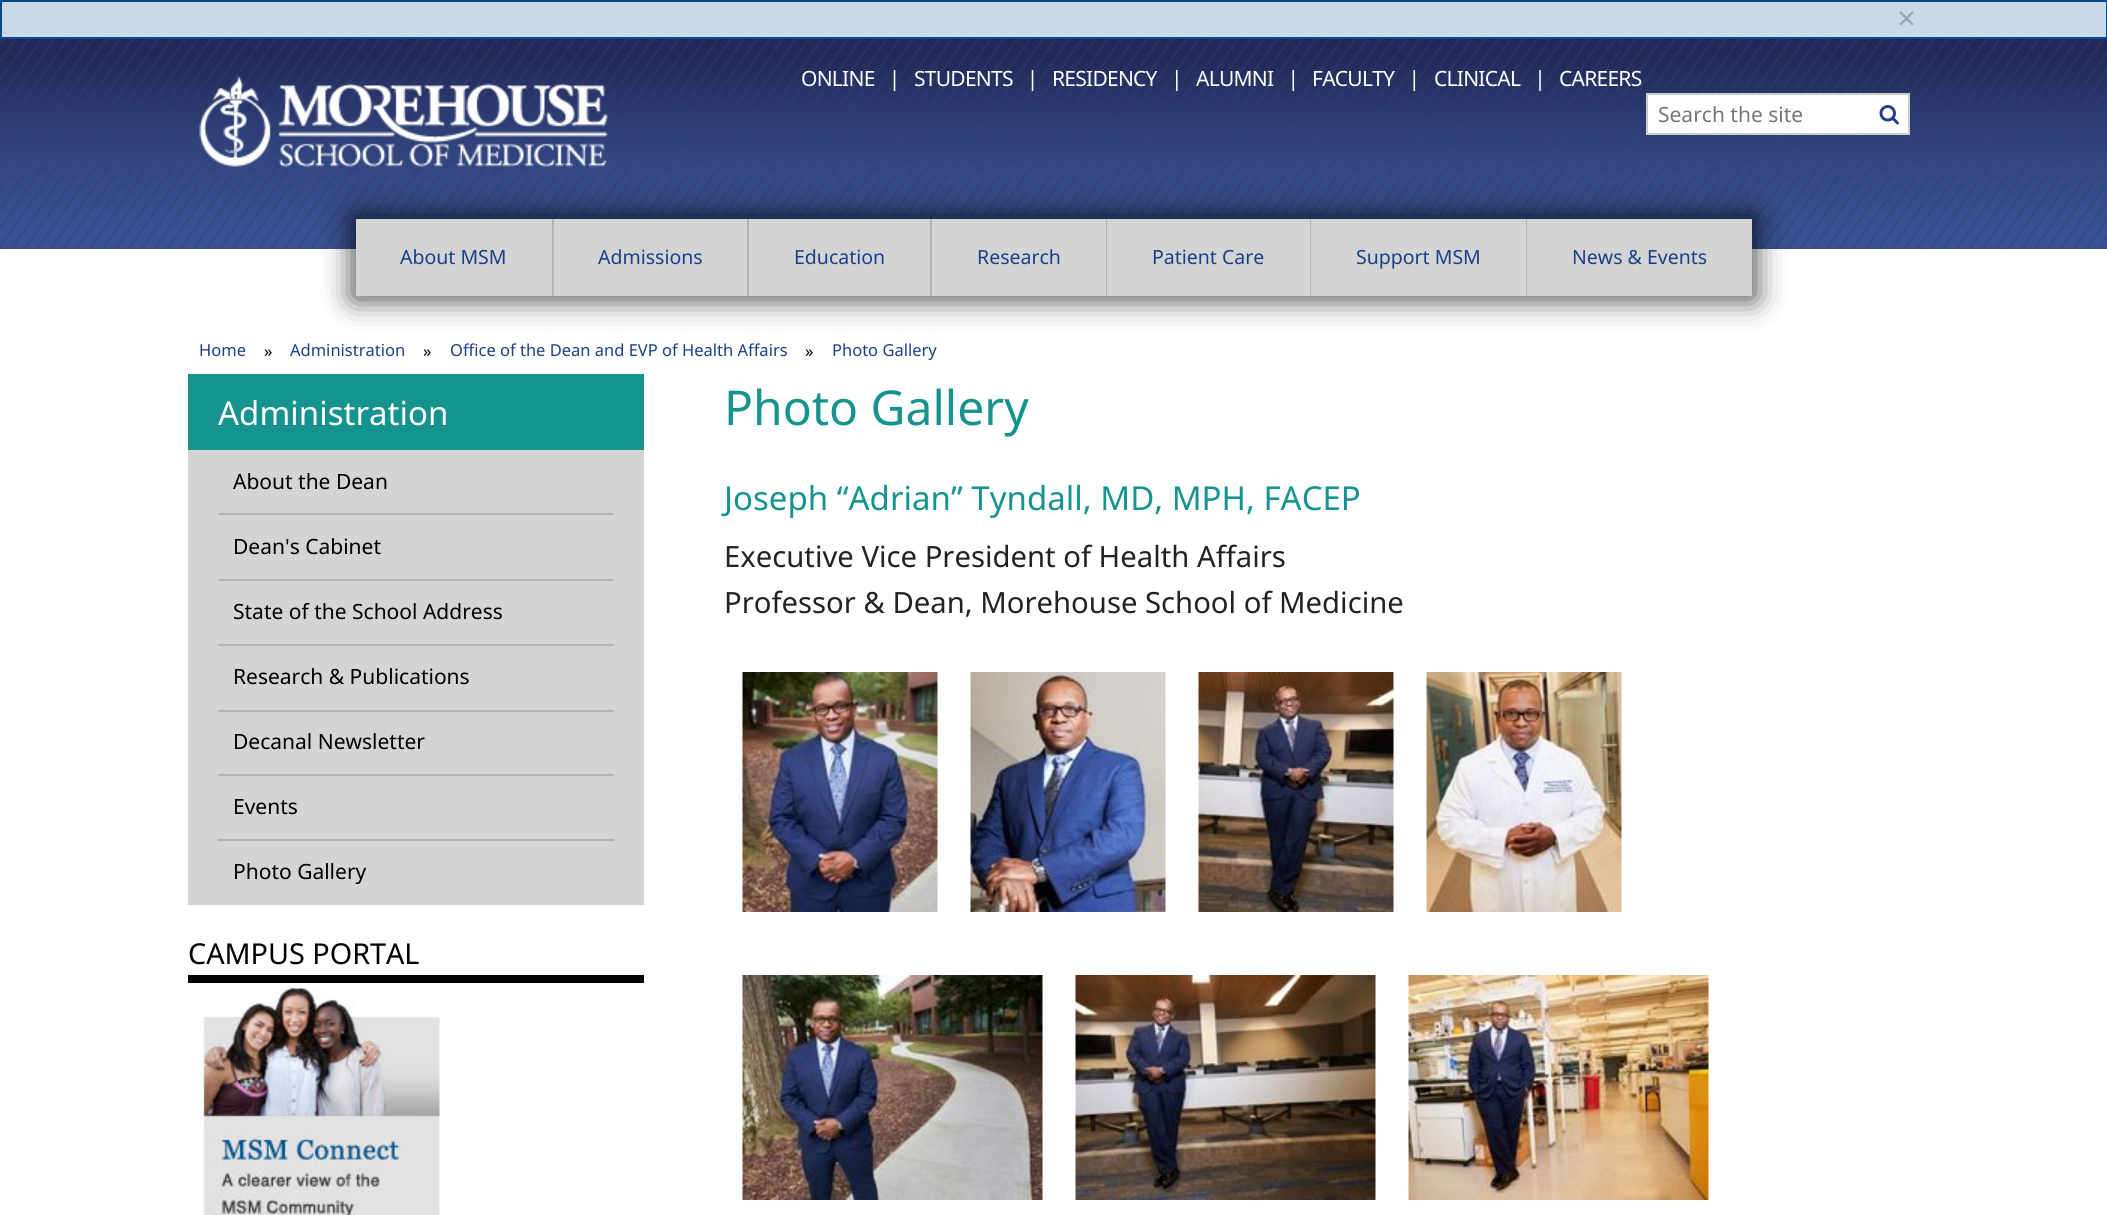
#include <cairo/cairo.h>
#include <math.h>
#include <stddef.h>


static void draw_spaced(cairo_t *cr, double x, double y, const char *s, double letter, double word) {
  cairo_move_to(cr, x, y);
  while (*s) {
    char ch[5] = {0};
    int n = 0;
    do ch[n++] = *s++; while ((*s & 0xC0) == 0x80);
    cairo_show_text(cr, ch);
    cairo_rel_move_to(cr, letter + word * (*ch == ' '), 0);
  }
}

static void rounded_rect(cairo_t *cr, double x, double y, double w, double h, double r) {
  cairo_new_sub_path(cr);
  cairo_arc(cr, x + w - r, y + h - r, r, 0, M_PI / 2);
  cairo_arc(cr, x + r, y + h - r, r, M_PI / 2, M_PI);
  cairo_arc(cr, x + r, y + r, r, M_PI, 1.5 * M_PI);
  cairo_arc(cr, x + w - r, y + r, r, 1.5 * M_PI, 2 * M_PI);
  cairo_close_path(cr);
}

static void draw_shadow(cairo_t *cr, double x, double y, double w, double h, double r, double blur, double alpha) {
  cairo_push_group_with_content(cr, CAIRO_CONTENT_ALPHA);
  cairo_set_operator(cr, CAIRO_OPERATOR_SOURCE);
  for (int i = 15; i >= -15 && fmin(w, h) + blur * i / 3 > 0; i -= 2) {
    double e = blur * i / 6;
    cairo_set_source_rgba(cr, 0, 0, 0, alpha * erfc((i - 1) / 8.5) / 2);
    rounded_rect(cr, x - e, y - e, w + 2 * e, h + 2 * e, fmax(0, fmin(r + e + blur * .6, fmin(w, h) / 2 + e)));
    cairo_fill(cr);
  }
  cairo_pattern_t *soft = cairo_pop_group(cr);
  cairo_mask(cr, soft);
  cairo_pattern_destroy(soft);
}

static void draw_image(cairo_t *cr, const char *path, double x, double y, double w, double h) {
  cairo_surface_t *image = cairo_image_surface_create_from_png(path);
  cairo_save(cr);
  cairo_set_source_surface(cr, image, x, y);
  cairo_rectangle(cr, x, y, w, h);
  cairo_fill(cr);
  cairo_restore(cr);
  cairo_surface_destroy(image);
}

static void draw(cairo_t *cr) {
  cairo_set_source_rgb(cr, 1, 1, 1);
  cairo_paint(cr);
  cairo_set_source_rgb(cr, 201 / 255.0, 217 / 255.0, 232 / 255.0);
  cairo_rectangle(cr, 1, 1, 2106, 37);
  cairo_fill_preserve(cr);
  cairo_set_source_rgb(cr, 0, 73 / 255.0, 144 / 255.0);
  cairo_stroke(cr);
  draw_image(cr, "images/1.png", 0, 39, 2107, 210);
  draw_image(cr, "images/2.png", 199, 76, 409, 91);
  cairo_set_source_rgb(cr, 1, 1, 1);
  cairo_rectangle(cr, 1647, 94, 262, 40);
  cairo_fill_preserve(cr);
  cairo_set_source_rgb(cr, 204 / 255.0, 204 / 255.0, 204 / 255.0);
  cairo_stroke(cr);
  draw_image(cr, "images/3.png", 1879, 105, 20, 20);
  cairo_set_source_rgb(cr, 0, 0, 0);
  draw_shadow(cr, 353, 216, 1402, 83, 0, 15, 0.75);
  cairo_set_source_rgb(cr, 211 / 255.0, 212 / 255.0, 212 / 255.0);
  cairo_rectangle(cr, 356, 219, 196, 77);
  cairo_fill(cr);
  cairo_set_source_rgb(cr, 179 / 255.0, 180 / 255.0, 180 / 255.0);
  cairo_rectangle(cr, 552, 219, 2, 77);
  cairo_fill(cr);
  cairo_set_source_rgb(cr, 211 / 255.0, 212 / 255.0, 212 / 255.0);
  cairo_rectangle(cr, 554, 219, 193, 77);
  cairo_fill(cr);
  cairo_set_source_rgb(cr, 179 / 255.0, 180 / 255.0, 180 / 255.0);
  cairo_rectangle(cr, 747, 219, 2, 77);
  cairo_fill(cr);
  cairo_set_source_rgb(cr, 211 / 255.0, 212 / 255.0, 212 / 255.0);
  cairo_rectangle(cr, 749, 219, 181, 77);
  cairo_fill(cr);
  cairo_set_source_rgb(cr, 179 / 255.0, 180 / 255.0, 180 / 255.0);
  cairo_rectangle(cr, 930, 219, 2, 77);
  cairo_fill(cr);
  cairo_set_source_rgb(cr, 211 / 255.0, 212 / 255.0, 212 / 255.0);
  cairo_rectangle(cr, 932, 219, 174, 77);
  cairo_fill(cr);
  cairo_set_source_rgb(cr, 179 / 255.0, 180 / 255.0, 180 / 255.0);
  cairo_rectangle(cr, 1106, 219, 1, 77);
  cairo_fill(cr);
  cairo_set_source_rgb(cr, 211 / 255.0, 212 / 255.0, 212 / 255.0);
  cairo_rectangle(cr, 1107, 219, 203, 77);
  cairo_fill(cr);
  cairo_set_source_rgb(cr, 179 / 255.0, 180 / 255.0, 180 / 255.0);
  cairo_rectangle(cr, 1310, 219, 1, 77);
  cairo_fill(cr);
  cairo_set_source_rgb(cr, 211 / 255.0, 212 / 255.0, 212 / 255.0);
  cairo_rectangle(cr, 1311, 219, 215, 77);
  cairo_fill(cr);
  cairo_set_source_rgb(cr, 179 / 255.0, 180 / 255.0, 180 / 255.0);
  cairo_rectangle(cr, 1526, 219, 1, 77);
  cairo_fill(cr);
  cairo_set_source_rgb(cr, 211 / 255.0, 212 / 255.0, 212 / 255.0);
  cairo_rectangle(cr, 1527, 219, 225, 77);
  cairo_fill(cr);
  cairo_set_source_rgb(cr, 21 / 255.0, 147 / 255.0, 142 / 255.0);
  cairo_rectangle(cr, 188, 374, 456, 76);
  cairo_fill(cr);
  cairo_set_source_rgb(cr, 212 / 255.0, 212 / 255.0, 212 / 255.0);
  cairo_rectangle(cr, 188, 450, 456, 455);
  cairo_fill(cr);
  cairo_set_source_rgb(cr, 179 / 255.0, 180 / 255.0, 180 / 255.0);
  cairo_rectangle(cr, 218, 513, 396, 2);
  cairo_fill(cr);
  cairo_rectangle(cr, 218, 579, 396, 2);
  cairo_fill(cr);
  cairo_rectangle(cr, 218, 644, 396, 2);
  cairo_fill(cr);
  cairo_rectangle(cr, 218, 710, 396, 2);
  cairo_fill(cr);
  cairo_rectangle(cr, 218, 774, 396, 2);
  cairo_fill(cr);
  cairo_rectangle(cr, 218, 839, 396, 2);
  cairo_fill(cr);
  cairo_set_source_rgb(cr, 0, 0, 0);
  cairo_rectangle(cr, 188, 975, 456, 8);
  cairo_fill(cr);
  draw_image(cr, "images/4.png", 199, 988, 241, 227);
  draw_image(cr, "images/5.png", 742, 672, 196, 240);
  draw_image(cr, "images/6.png", 970, 672, 196, 240);
  draw_image(cr, "images/7.png", 1198, 672, 196, 240);
  draw_image(cr, "images/8.png", 1426, 672, 196, 240);
  draw_image(cr, "images/9.png", 742, 975, 301, 225);
  draw_image(cr, "images/10.png", 1075, 975, 301, 225);
  draw_image(cr, "images/11.png", 1408, 975, 301, 225);
  cairo_select_font_face(cr, "Noto Sans", CAIRO_FONT_SLANT_NORMAL, CAIRO_FONT_WEIGHT_NORMAL);
  cairo_set_font_size(cr, 33);
  cairo_set_source_rgb(cr, 156 / 255.0, 167 / 255.0, 178 / 255.0);
  cairo_move_to(cr, 1897, 30);
  cairo_show_text(cr, "×");
  cairo_set_font_size(cr, 21);
  cairo_set_source_rgb(cr, 1, 1, 1);
  draw_spaced(cr, 801, 86, "ONLINE   |", -0.75, 0);
  draw_spaced(cr, 914, 86, "STUDENTS   |", -0.75, 0);
  draw_spaced(cr, 1052, 86, "RESIDENCY   |", -0.75, 0);
  draw_spaced(cr, 1196, 86, "ALUMNI   |", -0.75, 0);
  draw_spaced(cr, 1312, 86, "FACULTY   |", -0.75, 0);
  draw_spaced(cr, 1434, 86, "CLINICAL   |", -0.75, 0);
  draw_spaced(cr, 1559, 86, "CAREERS", -0.75, 0);
  cairo_set_source_rgb(cr, 117 / 255.0, 117 / 255.0, 117 / 255.0);
  cairo_move_to(cr, 1658, 122);
  cairo_show_text(cr, "Search the site");
  cairo_set_font_size(cr, 19.5);
  cairo_set_source_rgb(cr, 26 / 255.0, 63 / 255.0, 138 / 255.0);
  cairo_move_to(cr, 400, 264);
  cairo_show_text(cr, "About MSM");
  cairo_move_to(cr, 598, 264);
  cairo_show_text(cr, "Admissions");
  cairo_move_to(cr, 794, 264);
  cairo_show_text(cr, "Education");
  cairo_move_to(cr, 977, 264);
  cairo_show_text(cr, "Research");
  cairo_move_to(cr, 1152, 264);
  cairo_show_text(cr, "Patient Care");
  cairo_move_to(cr, 1356, 264);
  cairo_show_text(cr, "Support MSM");
  cairo_move_to(cr, 1572, 264);
  cairo_show_text(cr, "News & Events");
  cairo_set_font_size(cr, 16.5);
  cairo_move_to(cr, 199, 356);
  cairo_show_text(cr, "Home");
  cairo_set_source_rgb(cr, 0, 0, 0);
  cairo_move_to(cr, 264, 357);
  cairo_show_text(cr, "»");
  cairo_set_source_rgb(cr, 26 / 255.0, 63 / 255.0, 138 / 255.0);
  cairo_move_to(cr, 290, 356);
  cairo_show_text(cr, "Administration");
  cairo_set_source_rgb(cr, 0, 0, 0);
  cairo_move_to(cr, 423, 357);
  cairo_show_text(cr, "»");
  cairo_set_source_rgb(cr, 26 / 255.0, 63 / 255.0, 138 / 255.0);
  cairo_move_to(cr, 450, 356);
  cairo_show_text(cr, "Office of the Dean and EVP of Health Affairs");
  cairo_set_source_rgb(cr, 0, 0, 0);
  cairo_move_to(cr, 805, 357);
  cairo_show_text(cr, "»");
  cairo_set_source_rgb(cr, 26 / 255.0, 63 / 255.0, 138 / 255.0);
  cairo_move_to(cr, 832, 356);
  cairo_show_text(cr, "Photo Gallery");
  cairo_set_font_size(cr, 33);
  cairo_set_source_rgb(cr, 1, 1, 1);
  cairo_move_to(cr, 218, 425);
  cairo_show_text(cr, "Administration");
  cairo_set_font_size(cr, 21);
  cairo_set_source_rgb(cr, 0, 0, 0);
  cairo_move_to(cr, 233, 489);
  cairo_show_text(cr, "About the Dean");
  cairo_move_to(cr, 233, 554);
  cairo_show_text(cr, "Dean's Cabinet");
  cairo_move_to(cr, 233, 619);
  cairo_show_text(cr, "State of the School Address");
  cairo_move_to(cr, 233, 684);
  cairo_show_text(cr, "Research & Publications");
  cairo_move_to(cr, 233, 749);
  cairo_show_text(cr, "Decanal Newsletter");
  cairo_move_to(cr, 233, 814);
  cairo_show_text(cr, "Events");
  cairo_move_to(cr, 233, 879);
  cairo_show_text(cr, "Photo Gallery");
  cairo_set_font_size(cr, 28.75);
  cairo_move_to(cr, 188, 964);
  cairo_show_text(cr, "CAMPUS PORTAL");
  cairo_set_font_size(cr, 48);
  cairo_set_source_rgb(cr, 21 / 255.0, 147 / 255.0, 142 / 255.0);
  cairo_move_to(cr, 724, 425);
  cairo_show_text(cr, "Photo Gallery");
  cairo_set_font_size(cr, 33);
  cairo_move_to(cr, 724, 510);
  cairo_show_text(cr, "Joseph “Adrian” Tyndall, MD, MPH, FACEP");
  cairo_set_font_size(cr, 29.25);
  cairo_set_source_rgb(cr, 34 / 255.0, 34 / 255.0, 34 / 255.0);
  cairo_move_to(cr, 724, 567);
  cairo_show_text(cr, "Executive Vice President of Health Affairs");
  cairo_move_to(cr, 724, 613);
  cairo_show_text(cr, "Professor & Dean, Morehouse School of Medicine");
}

int main(void) {
  cairo_surface_t *surface = cairo_image_surface_create(CAIRO_FORMAT_RGB24, 2107, 1215);
  cairo_t *cr = cairo_create(surface);
  cairo_font_options_t *options = cairo_font_options_create();
  cairo_font_options_set_hint_metrics(options, CAIRO_HINT_METRICS_OFF);
  cairo_font_options_set_hint_style(options, CAIRO_HINT_STYLE_NONE);
  cairo_set_font_options(cr, options);
  cairo_set_miter_limit(cr, 4);
  draw(cr);
  cairo_surface_write_to_png(surface, "out.png");
  cairo_font_options_destroy(options);
  cairo_destroy(cr);
  cairo_surface_destroy(surface);
  return 0;
}
